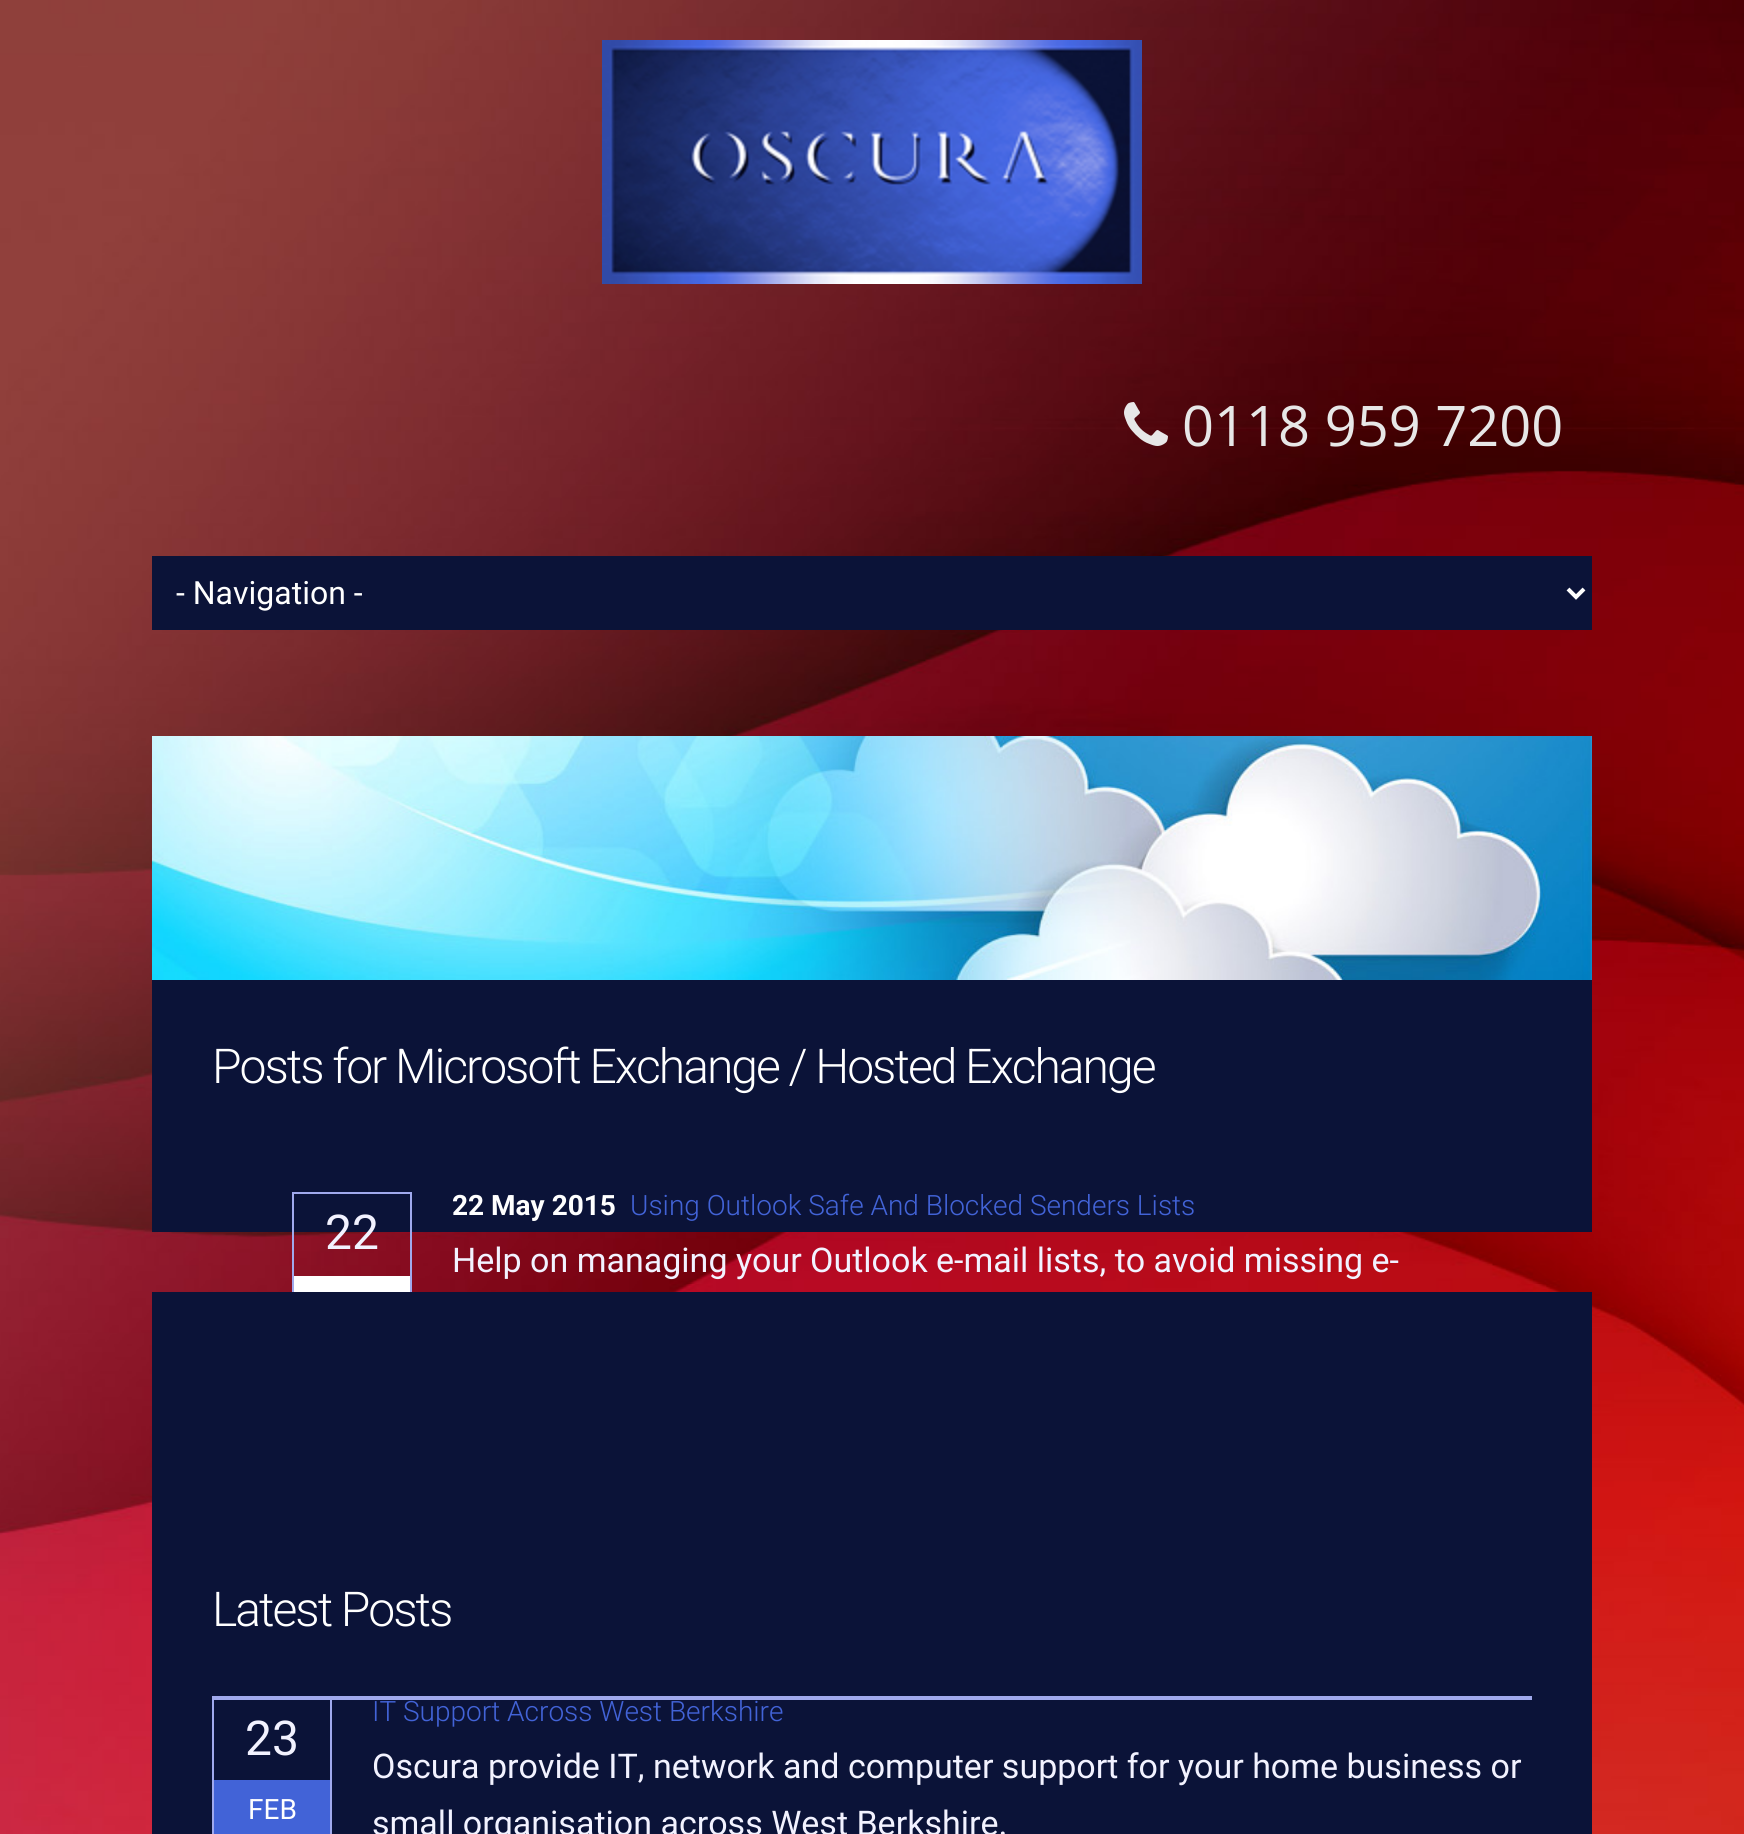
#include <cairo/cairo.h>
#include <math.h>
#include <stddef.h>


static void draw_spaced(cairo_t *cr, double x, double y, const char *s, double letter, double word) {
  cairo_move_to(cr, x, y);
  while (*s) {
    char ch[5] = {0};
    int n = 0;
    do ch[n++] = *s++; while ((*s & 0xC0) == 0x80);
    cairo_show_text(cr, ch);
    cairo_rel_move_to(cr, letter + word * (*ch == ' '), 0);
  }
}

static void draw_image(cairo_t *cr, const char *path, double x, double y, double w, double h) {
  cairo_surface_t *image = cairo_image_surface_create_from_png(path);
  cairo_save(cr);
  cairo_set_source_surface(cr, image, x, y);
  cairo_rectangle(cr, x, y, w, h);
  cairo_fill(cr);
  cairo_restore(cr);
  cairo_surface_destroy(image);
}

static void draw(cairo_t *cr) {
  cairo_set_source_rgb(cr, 1, 1, 1);
  cairo_paint(cr);
  draw_image(cr, "images/1.png", 0, 0, 1744, 1834);
  draw_image(cr, "images/2.png", 602, 40, 540, 244);
  draw_image(cr, "images/3.png", 1124, 402, 44, 44);
  cairo_set_source_rgb(cr, 11 / 255.0, 19 / 255.0, 56 / 255.0);
  cairo_rectangle(cr, 152, 556, 1440, 74);
  cairo_fill(cr);
  cairo_new_path(cr);
  cairo_move_to(cr, 1568, 589);
  cairo_line_to(cr, 1576, 597);
  cairo_line_to(cr, 1584, 589);
  cairo_set_source_rgb(cr, 1, 1, 1);
  cairo_set_line_width(cr, 4);
  cairo_stroke(cr);
  draw_image(cr, "images/4.png", 152, 736, 1440, 244);
  cairo_set_source_rgb(cr, 11 / 255.0, 19 / 255.0, 56 / 255.0);
  cairo_rectangle(cr, 152, 980, 1440, 252);
  cairo_fill(cr);
  cairo_rectangle(cr, 293, 1193, 118, 140);
  cairo_set_source_rgb(cr, 160 / 255.0, 169 / 255.0, 237 / 255.0);
  cairo_set_line_width(cr, 2);
  cairo_stroke(cr);
  cairo_set_source_rgb(cr, 1, 1, 1);
  cairo_rectangle(cr, 294, 1276, 116, 16);
  cairo_fill(cr);
  cairo_set_source_rgb(cr, 11 / 255.0, 19 / 255.0, 56 / 255.0);
  cairo_rectangle(cr, 152, 1292, 1440, 542);
  cairo_fill(cr);
  cairo_set_source_rgb(cr, 160 / 255.0, 169 / 255.0, 237 / 255.0);
  cairo_rectangle(cr, 212, 1696, 1320, 4);
  cairo_fill(cr);
  cairo_rectangle(cr, 213, 1697, 118, 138);
  cairo_stroke(cr);
  cairo_set_source_rgb(cr, 66 / 255.0, 99 / 255.0, 215 / 255.0);
  cairo_rectangle(cr, 214, 1780, 116, 54);
  cairo_fill(cr);
  cairo_select_font_face(cr, "Open Sans", CAIRO_FONT_SLANT_NORMAL, CAIRO_FONT_WEIGHT_NORMAL);
  cairo_set_font_size(cr, 56);
  cairo_set_source_rgb(cr, 231 / 255.0, 231 / 255.0, 231 / 255.0);
  cairo_move_to(cr, 1182, 446);
  cairo_show_text(cr, "0118 959 7200");
  cairo_select_font_face(cr, "Roboto", CAIRO_FONT_SLANT_NORMAL, CAIRO_FONT_WEIGHT_NORMAL);
  cairo_set_font_size(cr, 32);
  cairo_set_source_rgb(cr, 1, 1, 1);
  cairo_move_to(cr, 176, 604);
  cairo_show_text(cr, "- Navigation -");
  cairo_select_font_face(cr, "Roboto Light", CAIRO_FONT_SLANT_NORMAL, CAIRO_FONT_WEIGHT_NORMAL);
  cairo_set_font_size(cr, 48);
  draw_spaced(cr, 212, 1083, "Posts for Microsoft Exchange / Hosted Exchange", -2, 0);
  cairo_select_font_face(cr, "Roboto", CAIRO_FONT_SLANT_NORMAL, CAIRO_FONT_WEIGHT_NORMAL);
  cairo_set_source_rgb(cr, 242 / 255.0, 242 / 255.0, 1);
  cairo_move_to(cr, 325, 1249);
  cairo_show_text(cr, "22");
  cairo_select_font_face(cr, "Roboto", CAIRO_FONT_SLANT_NORMAL, CAIRO_FONT_WEIGHT_BOLD);
  cairo_set_font_size(cr, 28);
  cairo_set_source_rgb(cr, 1, 1, 1);
  cairo_move_to(cr, 452, 1215);
  cairo_show_text(cr, "22 May 2015");
  cairo_select_font_face(cr, "Roboto Light", CAIRO_FONT_SLANT_NORMAL, CAIRO_FONT_WEIGHT_NORMAL);
  cairo_set_source_rgb(cr, 66 / 255.0, 99 / 255.0, 215 / 255.0);
  cairo_move_to(cr, 630, 1215);
  cairo_show_text(cr, "Using Outlook Safe And Blocked Senders Lists");
  cairo_select_font_face(cr, "Roboto", CAIRO_FONT_SLANT_NORMAL, CAIRO_FONT_WEIGHT_NORMAL);
  cairo_set_font_size(cr, 34);
  cairo_set_source_rgb(cr, 242 / 255.0, 242 / 255.0, 1);
  cairo_move_to(cr, 452, 1272);
  cairo_show_text(cr, "Help on managing your Outlook e-mail lists, to avoid missing e-");
  cairo_select_font_face(cr, "Roboto Light", CAIRO_FONT_SLANT_NORMAL, CAIRO_FONT_WEIGHT_NORMAL);
  cairo_set_font_size(cr, 48);
  cairo_set_source_rgb(cr, 1, 1, 1);
  draw_spaced(cr, 212, 1626, "Latest Posts", -2, 0);
  cairo_select_font_face(cr, "Roboto", CAIRO_FONT_SLANT_NORMAL, CAIRO_FONT_WEIGHT_NORMAL);
  cairo_set_source_rgb(cr, 242 / 255.0, 242 / 255.0, 1);
  cairo_move_to(cr, 245, 1755);
  cairo_show_text(cr, "23");
  cairo_set_font_size(cr, 28);
  cairo_set_source_rgb(cr, 1, 1, 1);
  cairo_move_to(cr, 248, 1819);
  cairo_show_text(cr, "FEB");
  cairo_select_font_face(cr, "Roboto Light", CAIRO_FONT_SLANT_NORMAL, CAIRO_FONT_WEIGHT_NORMAL);
  cairo_set_source_rgb(cr, 66 / 255.0, 99 / 255.0, 215 / 255.0);
  cairo_move_to(cr, 372, 1721);
  cairo_show_text(cr, "IT Support Across West Berkshire");
  cairo_select_font_face(cr, "Roboto", CAIRO_FONT_SLANT_NORMAL, CAIRO_FONT_WEIGHT_NORMAL);
  cairo_set_font_size(cr, 34);
  cairo_set_source_rgb(cr, 242 / 255.0, 242 / 255.0, 1);
  cairo_move_to(cr, 372, 1778);
  cairo_show_text(cr, "Oscura provide IT, network and computer support for your home business or");
  cairo_move_to(cr, 372, 1835);
  cairo_show_text(cr, "small organisation across West Berkshire.");
}

int main(void) {
  cairo_surface_t *surface = cairo_image_surface_create(CAIRO_FORMAT_RGB24, 1744, 1834);
  cairo_t *cr = cairo_create(surface);
  cairo_font_options_t *options = cairo_font_options_create();
  cairo_font_options_set_hint_metrics(options, CAIRO_HINT_METRICS_OFF);
  cairo_font_options_set_hint_style(options, CAIRO_HINT_STYLE_NONE);
  cairo_set_font_options(cr, options);
  cairo_set_miter_limit(cr, 4);
  draw(cr);
  cairo_surface_write_to_png(surface, "out.png");
  cairo_font_options_destroy(options);
  cairo_destroy(cr);
  cairo_surface_destroy(surface);
  return 0;
}
